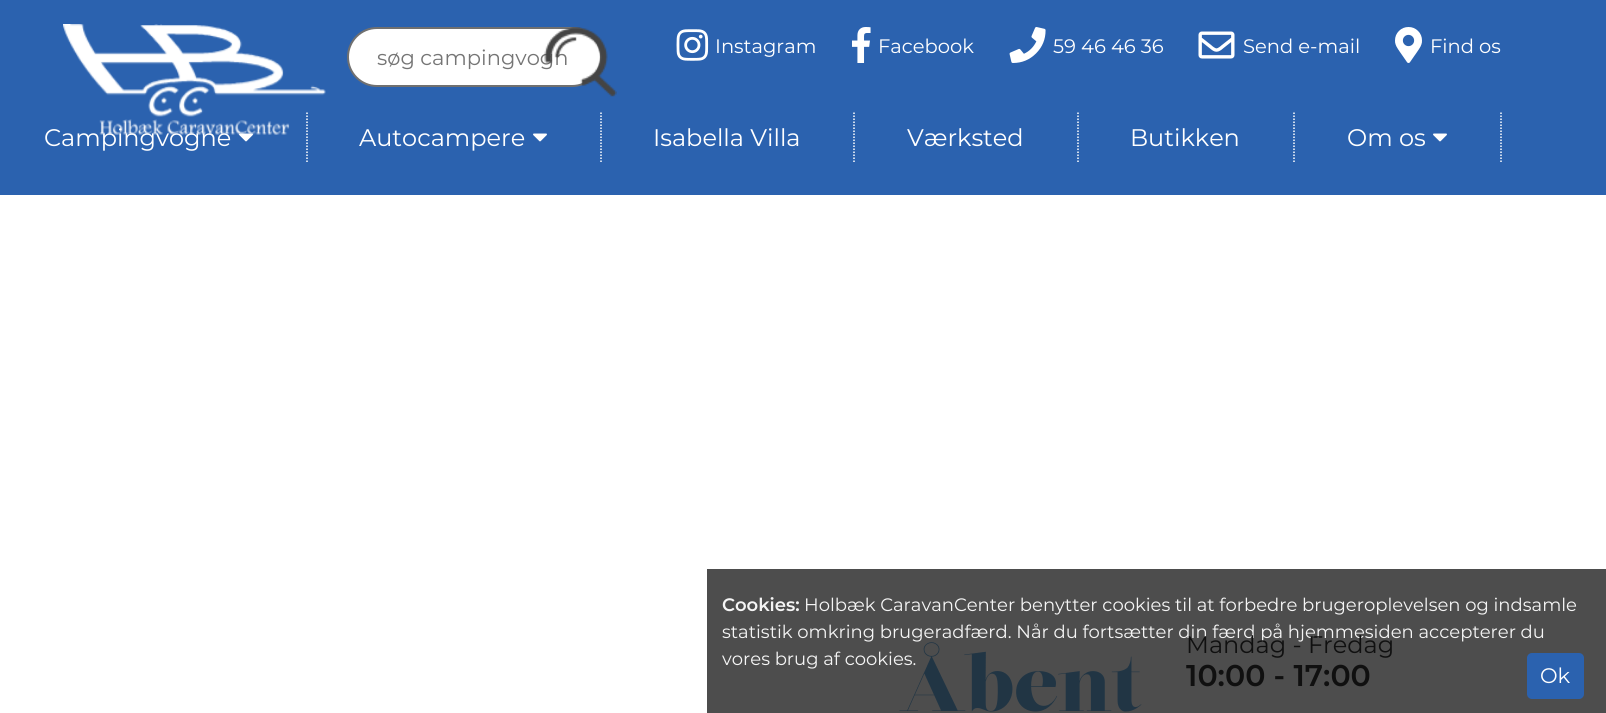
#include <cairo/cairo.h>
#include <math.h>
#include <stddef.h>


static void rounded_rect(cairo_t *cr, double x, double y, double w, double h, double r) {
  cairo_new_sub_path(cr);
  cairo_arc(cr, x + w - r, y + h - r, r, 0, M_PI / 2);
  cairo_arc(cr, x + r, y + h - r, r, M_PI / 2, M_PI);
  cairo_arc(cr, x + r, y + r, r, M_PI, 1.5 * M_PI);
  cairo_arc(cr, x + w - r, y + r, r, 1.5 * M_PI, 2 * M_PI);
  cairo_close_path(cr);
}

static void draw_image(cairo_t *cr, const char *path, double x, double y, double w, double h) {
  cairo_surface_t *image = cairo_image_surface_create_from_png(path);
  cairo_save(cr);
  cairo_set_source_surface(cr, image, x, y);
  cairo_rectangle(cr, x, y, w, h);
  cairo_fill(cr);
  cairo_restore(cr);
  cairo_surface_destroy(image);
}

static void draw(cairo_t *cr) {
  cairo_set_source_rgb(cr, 1, 1, 1);
  cairo_paint(cr);
  cairo_set_source_rgb(cr, 43 / 255.0, 98 / 255.0, 175 / 255.0);
  cairo_rectangle(cr, 0, 0, 1606, 195);
  cairo_fill(cr);
  draw_image(cr, "images/1.png", 63, 24, 263, 111);
  cairo_set_source_rgb(cr, 1, 1, 1);
  rounded_rect(cr, 348, 28, 253, 58, 29);
  cairo_fill_preserve(cr);
  cairo_set_source_rgb(cr, 112 / 255.0, 112 / 255.0, 112 / 255.0);
  cairo_stroke(cr);
  draw_image(cr, "images/3.png", 676, 29, 33, 32);
  draw_image(cr, "images/4.png", 852, 27, 19, 36);
  draw_image(cr, "images/5.png", 1009, 27, 37, 36);
  draw_image(cr, "images/6.png", 1198, 31, 37, 28);
  draw_image(cr, "images/7.png", 1395, 27, 27, 36);
  cairo_new_path(cr);
  cairo_move_to(cr, 307, 112.5);
  cairo_line_to(cr, 307, 163.5);
  cairo_set_source_rgb(cr, 1, 1, 1);
  cairo_set_line_width(cr, 1.5);
  cairo_set_dash(cr, (double[]){1.5, 1.5}, 2, 0);
  cairo_stroke(cr);
  draw_image(cr, "images/8.png", 239, 133, 14, 9);
  cairo_new_path(cr);
  cairo_move_to(cr, 601, 112.5);
  cairo_line_to(cr, 601, 163.5);
  cairo_stroke(cr);
  draw_image(cr, "images/9.png", 533, 133, 14, 9);
  cairo_new_path(cr);
  cairo_move_to(cr, 854, 112.5);
  cairo_line_to(cr, 854, 163.5);
  cairo_stroke(cr);
  cairo_new_path(cr);
  cairo_move_to(cr, 1078, 112.5);
  cairo_line_to(cr, 1078, 163.5);
  cairo_stroke(cr);
  cairo_new_path(cr);
  cairo_move_to(cr, 1294, 112.5);
  cairo_line_to(cr, 1294, 163.5);
  cairo_stroke(cr);
  cairo_new_path(cr);
  cairo_move_to(cr, 1501, 112.5);
  cairo_line_to(cr, 1501, 163.5);
  cairo_stroke(cr);
  draw_image(cr, "images/9.png", 1433, 133, 14, 9);
  cairo_set_source_rgb(cr, 77 / 255.0, 77 / 255.0, 77 / 255.0);
  cairo_rectangle(cr, 707, 569, 899, 144);
  cairo_fill(cr);
  cairo_set_source_rgb(cr, 43 / 255.0, 98 / 255.0, 175 / 255.0);
  rounded_rect(cr, 1527, 653, 57, 46, 5);
  cairo_fill(cr);
  cairo_select_font_face(cr, "Montserrat", CAIRO_FONT_SLANT_NORMAL, CAIRO_FONT_WEIGHT_NORMAL);
  cairo_set_font_size(cr, 21);
  cairo_set_source_rgb(cr, 117 / 255.0, 117 / 255.0, 117 / 255.0);
  cairo_move_to(cr, 377, 65);
  cairo_show_text(cr, "søg campingvogn");
  draw_image(cr, "images/2.png", 544, 27, 73, 70);
  cairo_set_font_size(cr, 19.5);
  cairo_set_source_rgb(cr, 1, 1, 1);
  cairo_move_to(cr, 715, 53);
  cairo_show_text(cr, "Instagram");
  cairo_move_to(cr, 878, 53);
  cairo_show_text(cr, "Facebook");
  cairo_move_to(cr, 1053, 53);
  cairo_show_text(cr, "59 46 46 36");
  cairo_move_to(cr, 1243, 53);
  cairo_show_text(cr, "Send e-mail");
  cairo_move_to(cr, 1430, 53);
  cairo_show_text(cr, "Find os");
  cairo_set_font_size(cr, 24);
  cairo_move_to(cr, 44, 146);
  cairo_show_text(cr, "Campingvogne");
  cairo_move_to(cr, 359, 146);
  cairo_show_text(cr, "Autocampere");
  cairo_move_to(cr, 653, 146);
  cairo_show_text(cr, "Isabella Villa");
  cairo_move_to(cr, 907, 146);
  cairo_show_text(cr, "Værksted");
  cairo_move_to(cr, 1130, 146);
  cairo_show_text(cr, "Butikken");
  cairo_move_to(cr, 1347, 146);
  cairo_show_text(cr, "Om os");
  cairo_select_font_face(cr, "Montserrat SemiBold", CAIRO_FONT_SLANT_NORMAL, CAIRO_FONT_WEIGHT_NORMAL);
  cairo_set_font_size(cr, 18);
  cairo_set_source_rgb(cr, 245 / 255.0, 245 / 255.0, 245 / 255.0);
  cairo_move_to(cr, 722, 611);
  cairo_show_text(cr, "Cookies:");
  cairo_select_font_face(cr, "Montserrat", CAIRO_FONT_SLANT_NORMAL, CAIRO_FONT_WEIGHT_NORMAL);
  cairo_move_to(cr, 804, 611);
  cairo_show_text(cr, "Holbæk CaravanCenter benytter cookies til at forbedre brugeroplevelsen og indsamle");
  cairo_move_to(cr, 722, 638);
  cairo_show_text(cr, "statistik omkring brugeradfærd. Når du fortsætter din færd på hjemmesiden accepterer du");
  cairo_set_font_size(cr, 21);
  cairo_set_source_rgb(cr, 1, 1, 1);
  cairo_move_to(cr, 1540, 683);
  cairo_show_text(cr, "Ok");
  cairo_select_font_face(cr, "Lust", CAIRO_FONT_SLANT_NORMAL, CAIRO_FONT_WEIGHT_NORMAL);
  cairo_set_font_size(cr, 75);
  cairo_set_source_rgb(cr, 33 / 255.0, 53 / 255.0, 68 / 255.0);
  cairo_move_to(cr, 899, 711);
  cairo_show_text(cr, "Åbent");
  cairo_select_font_face(cr, "Montserrat", CAIRO_FONT_SLANT_NORMAL, CAIRO_FONT_WEIGHT_NORMAL);
  cairo_set_font_size(cr, 18);
  cairo_set_source_rgb(cr, 245 / 255.0, 245 / 255.0, 245 / 255.0);
  cairo_move_to(cr, 722, 665);
  cairo_show_text(cr, "vores brug af cookies.");
  cairo_set_font_size(cr, 24);
  cairo_set_source_rgb(cr, 16 / 255.0, 16 / 255.0, 16 / 255.0);
  cairo_move_to(cr, 1186, 653);
  cairo_show_text(cr, "Mandag - Fredag");
  cairo_select_font_face(cr, "Montserrat SemiBold", CAIRO_FONT_SLANT_NORMAL, CAIRO_FONT_WEIGHT_NORMAL);
  cairo_set_font_size(cr, 30);
  cairo_move_to(cr, 1186, 686);
  cairo_show_text(cr, "10:00 - 17:00");
}

int main(void) {
  cairo_surface_t *surface = cairo_image_surface_create(CAIRO_FORMAT_RGB24, 1606, 713);
  cairo_t *cr = cairo_create(surface);
  cairo_font_options_t *options = cairo_font_options_create();
  cairo_font_options_set_hint_metrics(options, CAIRO_HINT_METRICS_OFF);
  cairo_font_options_set_hint_style(options, CAIRO_HINT_STYLE_NONE);
  cairo_set_font_options(cr, options);
  cairo_set_miter_limit(cr, 4);
  draw(cr);
  cairo_surface_write_to_png(surface, "out.png");
  cairo_font_options_destroy(options);
  cairo_destroy(cr);
  cairo_surface_destroy(surface);
  return 0;
}
